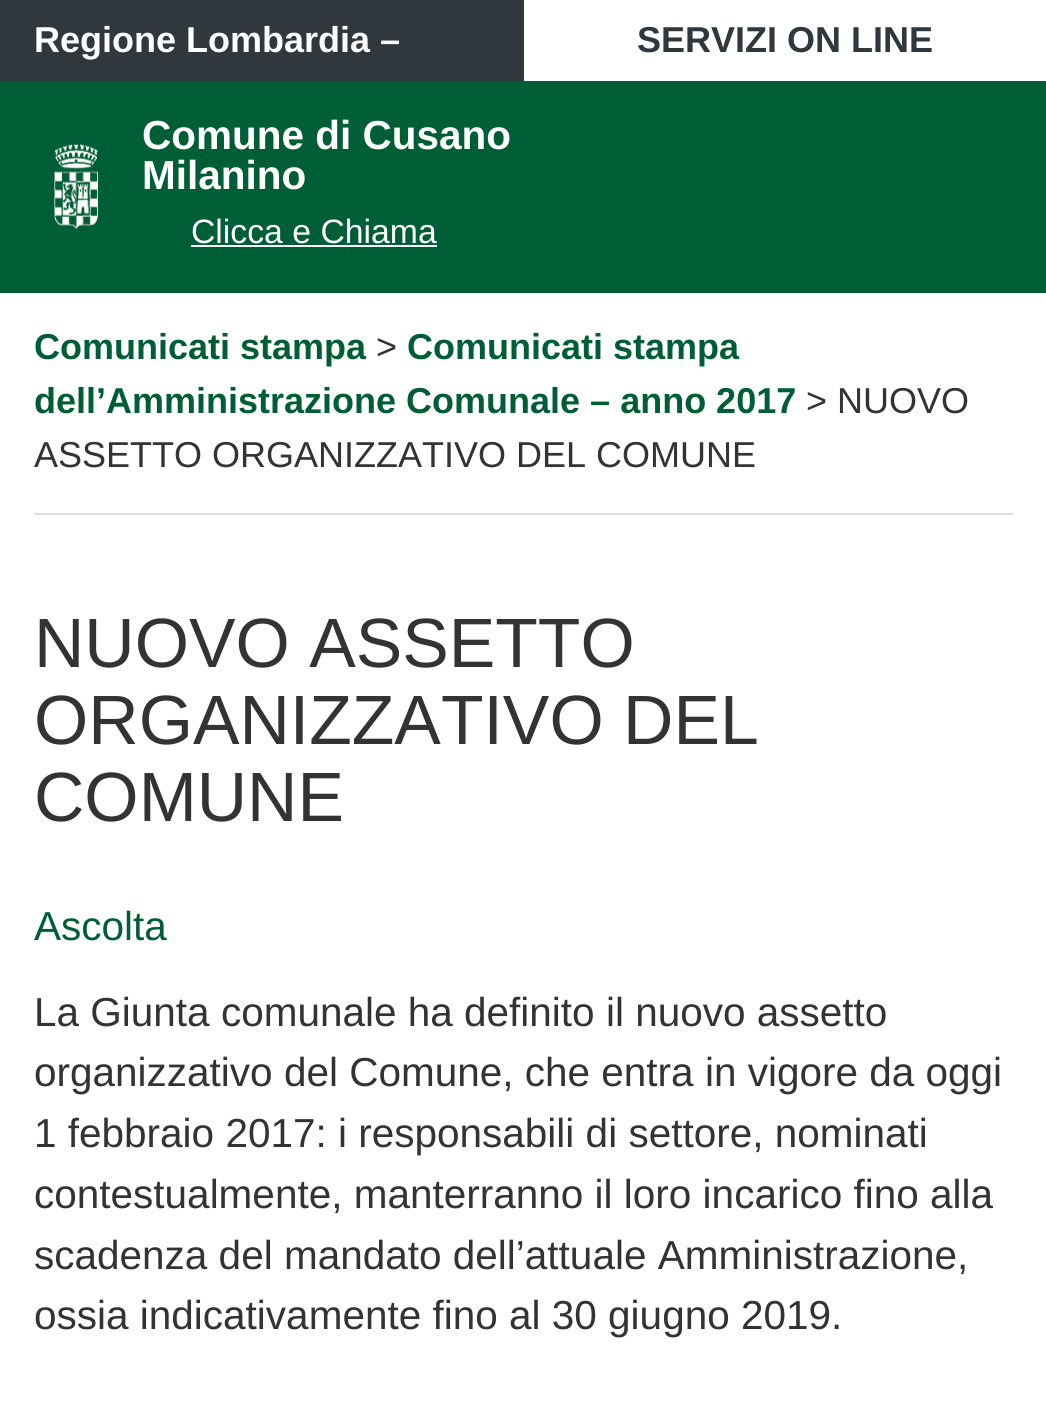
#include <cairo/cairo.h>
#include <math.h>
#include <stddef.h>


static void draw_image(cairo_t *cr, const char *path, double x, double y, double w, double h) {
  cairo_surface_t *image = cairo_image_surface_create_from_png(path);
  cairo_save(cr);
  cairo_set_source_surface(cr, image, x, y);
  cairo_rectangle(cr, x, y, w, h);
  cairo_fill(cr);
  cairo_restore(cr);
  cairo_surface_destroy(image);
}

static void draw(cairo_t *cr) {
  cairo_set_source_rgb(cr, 1, 1, 1);
  cairo_paint(cr);
  cairo_set_source_rgb(cr, 48 / 255.0, 55 / 255.0, 61 / 255.0);
  cairo_rectangle(cr, 0, 0, 524, 81);
  cairo_fill(cr);
  cairo_set_source_rgb(cr, 0, 94 / 255.0, 54 / 255.0);
  cairo_rectangle(cr, 0, 81, 1046, 212);
  cairo_fill(cr);
  draw_image(cr, "images/1.png", 54, 143, 44, 87);
  cairo_set_source_rgb(cr, 1, 1, 1);
  cairo_rectangle(cr, 191, 245, 246, 2);
  cairo_fill(cr);
  cairo_set_source_rgb(cr, 221 / 255.0, 221 / 255.0, 221 / 255.0);
  cairo_rectangle(cr, 34, 513, 979, 2);
  cairo_fill(cr);
  cairo_select_font_face(cr, "Liberation Sans", CAIRO_FONT_SLANT_NORMAL, CAIRO_FONT_WEIGHT_BOLD);
  cairo_set_font_size(cr, 36);
  cairo_set_source_rgb(cr, 1, 1, 1);
  cairo_move_to(cr, 34, 52);
  cairo_show_text(cr, "Regione Lombardia –");
  cairo_set_source_rgb(cr, 48 / 255.0, 55 / 255.0, 61 / 255.0);
  cairo_move_to(cr, 637, 52);
  cairo_show_text(cr, "SERVIZI ON LINE");
  cairo_set_font_size(cr, 40.5);
  cairo_set_source_rgb(cr, 1, 1, 1);
  cairo_move_to(cr, 142, 149);
  cairo_show_text(cr, "Comune di Cusano");
  cairo_move_to(cr, 142, 189);
  cairo_show_text(cr, "Milanino");
  cairo_select_font_face(cr, "Liberation Sans", CAIRO_FONT_SLANT_NORMAL, CAIRO_FONT_WEIGHT_NORMAL);
  cairo_set_font_size(cr, 33.75);
  cairo_move_to(cr, 191, 243);
  cairo_show_text(cr, "Clicca e Chiama");
  cairo_select_font_face(cr, "Liberation Sans", CAIRO_FONT_SLANT_NORMAL, CAIRO_FONT_WEIGHT_BOLD);
  cairo_set_font_size(cr, 36);
  cairo_set_source_rgb(cr, 0, 94 / 255.0, 54 / 255.0);
  cairo_move_to(cr, 34, 359);
  cairo_show_text(cr, "Comunicati stampa");
  cairo_select_font_face(cr, "Liberation Sans", CAIRO_FONT_SLANT_NORMAL, CAIRO_FONT_WEIGHT_NORMAL);
  cairo_set_source_rgb(cr, 51 / 255.0, 51 / 255.0, 51 / 255.0);
  cairo_move_to(cr, 376, 359);
  cairo_show_text(cr, ">");
  cairo_select_font_face(cr, "Liberation Sans", CAIRO_FONT_SLANT_NORMAL, CAIRO_FONT_WEIGHT_BOLD);
  cairo_set_source_rgb(cr, 0, 94 / 255.0, 54 / 255.0);
  cairo_move_to(cr, 407, 359);
  cairo_show_text(cr, "Comunicati stampa");
  cairo_move_to(cr, 34, 413);
  cairo_show_text(cr, "dell’Amministrazione Comunale – anno 2017");
  cairo_select_font_face(cr, "Liberation Sans", CAIRO_FONT_SLANT_NORMAL, CAIRO_FONT_WEIGHT_NORMAL);
  cairo_set_source_rgb(cr, 51 / 255.0, 51 / 255.0, 51 / 255.0);
  cairo_move_to(cr, 806, 413);
  cairo_show_text(cr, "> NUOVO");
  cairo_move_to(cr, 34, 467);
  cairo_show_text(cr, "ASSETTO ORGANIZZATIVO DEL COMUNE");
  cairo_set_font_size(cr, 69.75);
  cairo_move_to(cr, 34, 667);
  cairo_show_text(cr, "NUOVO ASSETTO");
  cairo_move_to(cr, 34, 744);
  cairo_show_text(cr, "ORGANIZZATIVO DEL");
  cairo_move_to(cr, 34, 821);
  cairo_show_text(cr, "COMUNE");
  cairo_set_font_size(cr, 40.5);
  cairo_set_source_rgb(cr, 0, 94 / 255.0, 54 / 255.0);
  cairo_move_to(cr, 34, 940);
  cairo_show_text(cr, "Ascolta");
  cairo_set_source_rgb(cr, 51 / 255.0, 51 / 255.0, 51 / 255.0);
  cairo_move_to(cr, 34, 1026);
  cairo_show_text(cr, "La Giunta comunale ha definito il nuovo assetto");
  cairo_move_to(cr, 34, 1086);
  cairo_show_text(cr, "organizzativo del Comune, che entra in vigore da oggi");
  cairo_move_to(cr, 34, 1147);
  cairo_show_text(cr, "1 febbraio 2017: i responsabili di settore, nominati");
  cairo_move_to(cr, 34, 1208);
  cairo_show_text(cr, "contestualmente, manterranno il loro incarico fino alla");
  cairo_move_to(cr, 34, 1269);
  cairo_show_text(cr, "scadenza del mandato dell’attuale Amministrazione,");
  cairo_move_to(cr, 34, 1329);
  cairo_show_text(cr, "ossia indicativamente fino al 30 giugno 2019.");
}

int main(void) {
  cairo_surface_t *surface = cairo_image_surface_create(CAIRO_FORMAT_RGB24, 1046, 1409);
  cairo_t *cr = cairo_create(surface);
  cairo_font_options_t *options = cairo_font_options_create();
  cairo_font_options_set_hint_metrics(options, CAIRO_HINT_METRICS_OFF);
  cairo_font_options_set_hint_style(options, CAIRO_HINT_STYLE_NONE);
  cairo_set_font_options(cr, options);
  cairo_set_miter_limit(cr, 4);
  draw(cr);
  cairo_surface_write_to_png(surface, "out.png");
  cairo_font_options_destroy(options);
  cairo_destroy(cr);
  cairo_surface_destroy(surface);
  return 0;
}
